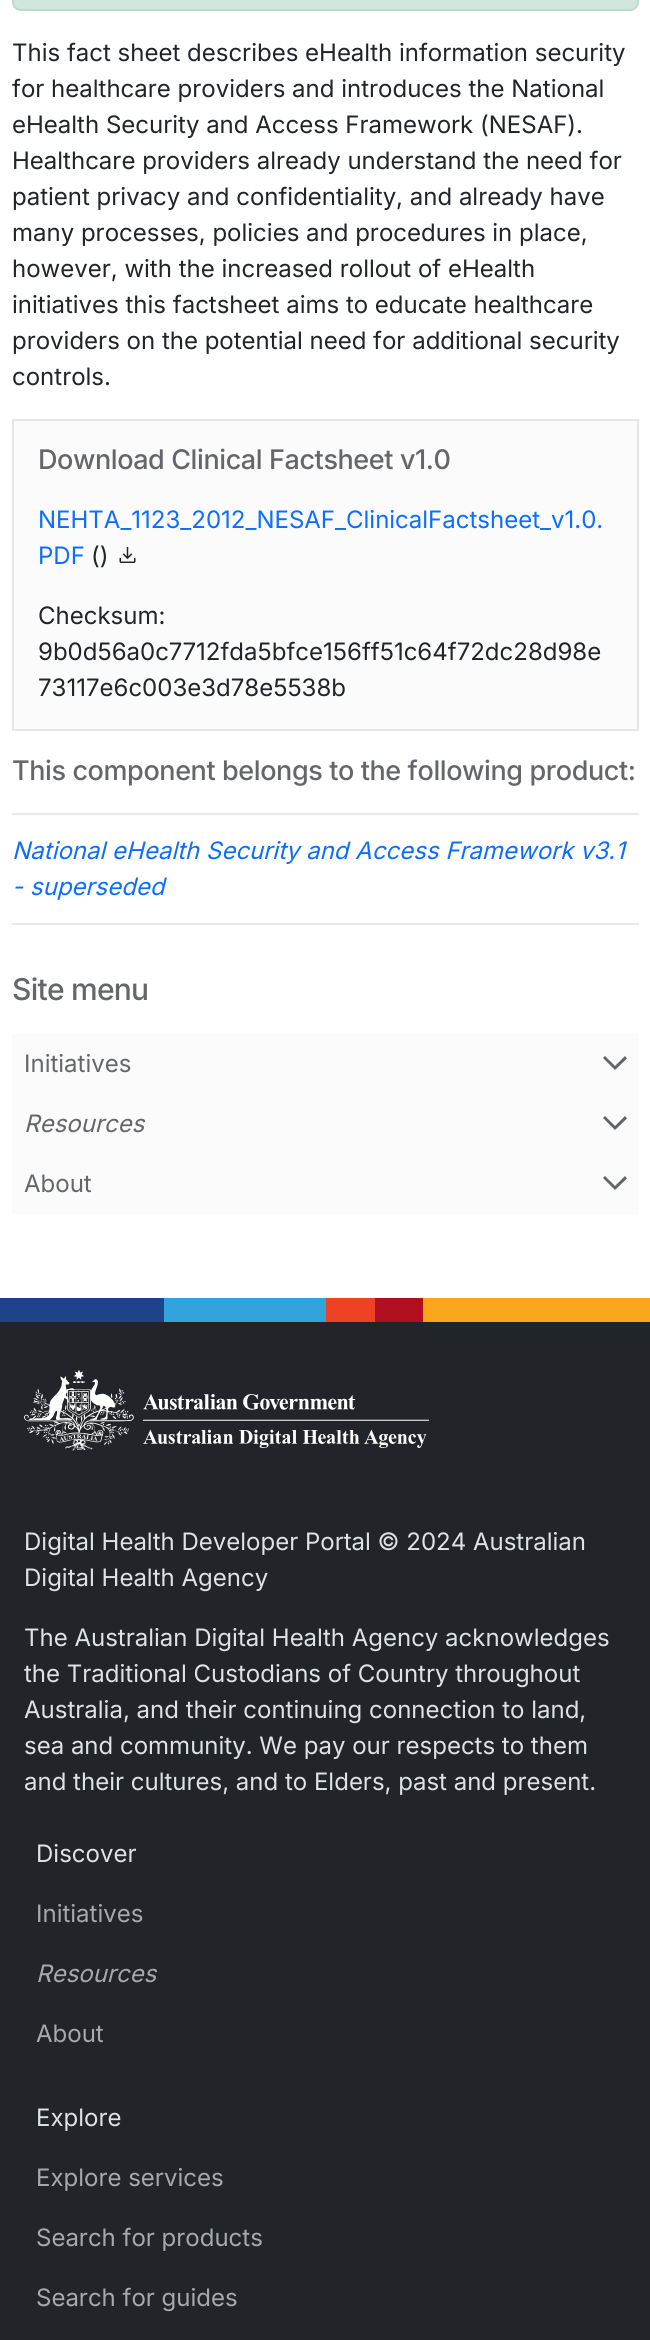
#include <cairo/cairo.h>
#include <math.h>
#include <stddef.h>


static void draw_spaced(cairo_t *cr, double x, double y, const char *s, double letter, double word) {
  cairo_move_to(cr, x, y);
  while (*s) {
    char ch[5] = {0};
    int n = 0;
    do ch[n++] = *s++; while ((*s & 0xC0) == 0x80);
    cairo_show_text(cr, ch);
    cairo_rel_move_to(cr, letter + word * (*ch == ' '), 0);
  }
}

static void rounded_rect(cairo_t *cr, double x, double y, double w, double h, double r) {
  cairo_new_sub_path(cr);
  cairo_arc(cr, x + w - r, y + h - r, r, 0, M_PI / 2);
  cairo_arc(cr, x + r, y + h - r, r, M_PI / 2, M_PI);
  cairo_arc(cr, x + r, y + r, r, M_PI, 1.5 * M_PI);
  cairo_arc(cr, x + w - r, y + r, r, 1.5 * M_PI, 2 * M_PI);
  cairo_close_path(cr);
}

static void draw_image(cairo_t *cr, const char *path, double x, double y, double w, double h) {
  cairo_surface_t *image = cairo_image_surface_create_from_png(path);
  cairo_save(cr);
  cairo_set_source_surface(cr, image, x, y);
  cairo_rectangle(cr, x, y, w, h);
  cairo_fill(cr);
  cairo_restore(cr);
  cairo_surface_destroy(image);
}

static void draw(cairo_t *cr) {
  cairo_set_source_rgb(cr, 33 / 255.0, 37 / 255.0, 41 / 255.0);
  cairo_paint(cr);
  cairo_set_source_rgb(cr, 1, 1, 1);
  cairo_rectangle(cr, 0, 0, 650, 1298);
  cairo_fill(cr);
  cairo_set_source_rgb(cr, 209 / 255.0, 231 / 255.0, 221 / 255.0);
  rounded_rect(cr, 13, -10, 625, 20, 8);
  cairo_fill_preserve(cr);
  cairo_set_source_rgb(cr, 186 / 255.0, 219 / 255.0, 204 / 255.0);
  cairo_stroke(cr);
  cairo_set_source_rgb(cr, 251 / 255.0, 251 / 255.0, 251 / 255.0);
  cairo_rectangle(cr, 13, 420, 625, 310);
  cairo_fill_preserve(cr);
  cairo_set_source_rgb(cr, 229 / 255.0, 230 / 255.0, 230 / 255.0);
  cairo_stroke(cr);
  draw_image(cr, "images/1.png", 119, 547, 17, 16);
  cairo_set_source_rgb(cr, 233 / 255.0, 233 / 255.0, 234 / 255.0);
  cairo_rectangle(cr, 12, 813, 627, 2);
  cairo_fill(cr);
  cairo_rectangle(cr, 12, 923, 627, 2);
  cairo_fill(cr);
  cairo_set_source_rgb(cr, 251 / 255.0, 251 / 255.0, 251 / 255.0);
  cairo_rectangle(cr, 12, 1034, 627, 180);
  cairo_fill(cr);
  cairo_set_source_rgb(cr, 98 / 255.0, 101 / 255.0, 104 / 255.0);
  cairo_new_path(cr);
  cairo_move_to(cr, 615, 1070);
  cairo_line_to(cr, 603, 1058);
  cairo_line_to(cr, 605, 1056);
  cairo_line_to(cr, 615, 1066);
  cairo_line_to(cr, 625, 1056);
  cairo_line_to(cr, 627, 1058.5);
  cairo_close_path(cr);
  cairo_fill(cr);
  cairo_new_path(cr);
  cairo_move_to(cr, 615, 1130);
  cairo_line_to(cr, 603, 1118);
  cairo_line_to(cr, 605, 1116);
  cairo_line_to(cr, 615, 1126);
  cairo_line_to(cr, 625, 1116);
  cairo_line_to(cr, 627, 1118.5);
  cairo_close_path(cr);
  cairo_fill(cr);
  cairo_new_path(cr);
  cairo_move_to(cr, 615, 1190);
  cairo_line_to(cr, 603, 1178);
  cairo_line_to(cr, 605, 1176);
  cairo_line_to(cr, 615, 1186);
  cairo_line_to(cr, 625, 1176);
  cairo_line_to(cr, 627, 1178.5);
  cairo_close_path(cr);
  cairo_fill(cr);
  cairo_set_source_rgb(cr, 31 / 255.0, 67 / 255.0, 136 / 255.0);
  cairo_rectangle(cr, 0, 1298, 164, 24);
  cairo_fill(cr);
  cairo_set_source_rgb(cr, 51 / 255.0, 163 / 255.0, 220 / 255.0);
  cairo_rectangle(cr, 164, 1298, 162, 24);
  cairo_fill(cr);
  cairo_set_source_rgb(cr, 239 / 255.0, 65 / 255.0, 35 / 255.0);
  cairo_rectangle(cr, 326, 1298, 49, 24);
  cairo_fill(cr);
  cairo_set_source_rgb(cr, 177 / 255.0, 15 / 255.0, 31 / 255.0);
  cairo_rectangle(cr, 375, 1298, 48, 24);
  cairo_fill(cr);
  cairo_set_source_rgb(cr, 250 / 255.0, 166 / 255.0, 26 / 255.0);
  cairo_rectangle(cr, 423, 1298, 227, 24);
  cairo_fill(cr);
  draw_image(cr, "images/2.png", 24, 1370, 405, 81);
  cairo_select_font_face(cr, "Inter", CAIRO_FONT_SLANT_NORMAL, CAIRO_FONT_WEIGHT_NORMAL);
  cairo_set_font_size(cr, 24);
  cairo_set_source_rgb(cr, 33 / 255.0, 37 / 255.0, 41 / 255.0);
  cairo_move_to(cr, 12, 61);
  cairo_show_text(cr, "This fact sheet describes eHealth information security");
  cairo_move_to(cr, 12, 97);
  cairo_show_text(cr, "for healthcare providers and introduces the National");
  cairo_move_to(cr, 12, 133);
  cairo_show_text(cr, "eHealth Security and Access Framework (NESAF).");
  cairo_move_to(cr, 12, 169);
  cairo_show_text(cr, "Healthcare providers already understand the need for");
  cairo_move_to(cr, 12, 205);
  cairo_show_text(cr, "patient privacy and confidentiality, and already have");
  cairo_move_to(cr, 12, 241);
  cairo_show_text(cr, "many processes, policies and procedures in place,");
  cairo_move_to(cr, 12, 277);
  cairo_show_text(cr, "however, with the increased rollout of eHealth");
  cairo_move_to(cr, 12, 313);
  cairo_show_text(cr, "initiatives this factsheet aims to educate healthcare");
  cairo_move_to(cr, 12, 349);
  cairo_show_text(cr, "providers on the potential need for additional security");
  cairo_move_to(cr, 12, 385);
  cairo_show_text(cr, "controls.");
  cairo_select_font_face(cr, "Inter Medium", CAIRO_FONT_SLANT_NORMAL, CAIRO_FONT_WEIGHT_NORMAL);
  cairo_set_font_size(cr, 27);
  cairo_set_source_rgb(cr, 100 / 255.0, 102 / 255.0, 105 / 255.0);
  draw_spaced(cr, 38, 469, "Download Clinical Factsheet v1.0", -0.4, 0);
  cairo_select_font_face(cr, "Inter", CAIRO_FONT_SLANT_NORMAL, CAIRO_FONT_WEIGHT_NORMAL);
  cairo_set_font_size(cr, 24);
  cairo_set_source_rgb(cr, 13 / 255.0, 110 / 255.0, 253 / 255.0);
  cairo_move_to(cr, 38, 528);
  cairo_show_text(cr, "NEHTA_1123_2012_NESAF_ClinicalFactsheet_v1.0.");
  cairo_move_to(cr, 38, 564);
  cairo_show_text(cr, "PDF");
  cairo_set_source_rgb(cr, 33 / 255.0, 37 / 255.0, 41 / 255.0);
  cairo_move_to(cr, 91, 564);
  cairo_show_text(cr, "()");
  cairo_move_to(cr, 38, 624);
  cairo_show_text(cr, "Checksum:");
  cairo_move_to(cr, 38, 660);
  cairo_show_text(cr, "9b0d56a0c7712fda5bfce156ff51c64f72dc28d98e");
  cairo_move_to(cr, 38, 696);
  cairo_show_text(cr, "73117e6c003e3d78e5538b");
  cairo_select_font_face(cr, "Inter Medium", CAIRO_FONT_SLANT_NORMAL, CAIRO_FONT_WEIGHT_NORMAL);
  cairo_set_font_size(cr, 27);
  cairo_set_source_rgb(cr, 100 / 255.0, 102 / 255.0, 105 / 255.0);
  draw_spaced(cr, 12, 780, "This component belongs to the following product:", -0.4, 0);
  cairo_select_font_face(cr, "Inter", CAIRO_FONT_SLANT_ITALIC, CAIRO_FONT_WEIGHT_NORMAL);
  cairo_set_font_size(cr, 24);
  cairo_set_source_rgb(cr, 13 / 255.0, 110 / 255.0, 253 / 255.0);
  cairo_move_to(cr, 12, 859);
  cairo_show_text(cr, "National eHealth Security and Access Framework v3.1");
  cairo_move_to(cr, 12, 895);
  cairo_show_text(cr, "- superseded");
  cairo_select_font_face(cr, "Inter Medium", CAIRO_FONT_SLANT_NORMAL, CAIRO_FONT_WEIGHT_NORMAL);
  cairo_set_font_size(cr, 30);
  cairo_set_source_rgb(cr, 100 / 255.0, 102 / 255.0, 105 / 255.0);
  draw_spaced(cr, 12, 1000, "Site menu", -0.75, 0);
  cairo_select_font_face(cr, "Inter", CAIRO_FONT_SLANT_NORMAL, CAIRO_FONT_WEIGHT_NORMAL);
  cairo_set_font_size(cr, 24);
  cairo_move_to(cr, 24, 1072);
  cairo_show_text(cr, "Initiatives");
  cairo_select_font_face(cr, "Inter", CAIRO_FONT_SLANT_ITALIC, CAIRO_FONT_WEIGHT_NORMAL);
  cairo_move_to(cr, 24, 1132);
  cairo_show_text(cr, "Resources");
  cairo_select_font_face(cr, "Inter", CAIRO_FONT_SLANT_NORMAL, CAIRO_FONT_WEIGHT_NORMAL);
  cairo_move_to(cr, 24, 1192);
  cairo_show_text(cr, "About");
  cairo_set_source_rgb(cr, 222 / 255.0, 226 / 255.0, 230 / 255.0);
  cairo_move_to(cr, 24, 1550);
  cairo_show_text(cr, "Digital Health Developer Portal © 2024 Australian");
  cairo_move_to(cr, 24, 1586);
  cairo_show_text(cr, "Digital Health Agency");
  cairo_move_to(cr, 24, 1646);
  cairo_show_text(cr, "The Australian Digital Health Agency acknowledges");
  cairo_move_to(cr, 24, 1682);
  cairo_show_text(cr, "the Traditional Custodians of Country throughout");
  cairo_move_to(cr, 24, 1718);
  cairo_show_text(cr, "Australia, and their continuing connection to land,");
  cairo_move_to(cr, 24, 1754);
  cairo_show_text(cr, "sea and community. We pay our respects to them");
  cairo_move_to(cr, 24, 1790);
  cairo_show_text(cr, "and their cultures, and to Elders, past and present.");
  cairo_move_to(cr, 36, 1862);
  cairo_show_text(cr, "Discover");
  cairo_set_source_rgb(cr, 165 / 255.0, 169 / 255.0, 173 / 255.0);
  cairo_move_to(cr, 36, 1922);
  cairo_show_text(cr, "Initiatives");
  cairo_select_font_face(cr, "Inter", CAIRO_FONT_SLANT_ITALIC, CAIRO_FONT_WEIGHT_NORMAL);
  cairo_move_to(cr, 36, 1982);
  cairo_show_text(cr, "Resources");
  cairo_select_font_face(cr, "Inter", CAIRO_FONT_SLANT_NORMAL, CAIRO_FONT_WEIGHT_NORMAL);
  cairo_move_to(cr, 36, 2042);
  cairo_show_text(cr, "About");
  cairo_set_source_rgb(cr, 222 / 255.0, 226 / 255.0, 230 / 255.0);
  cairo_move_to(cr, 36, 2126);
  cairo_show_text(cr, "Explore");
  cairo_set_source_rgb(cr, 165 / 255.0, 169 / 255.0, 173 / 255.0);
  cairo_move_to(cr, 36, 2186);
  cairo_show_text(cr, "Explore services");
  cairo_move_to(cr, 36, 2246);
  cairo_show_text(cr, "Search for products");
  cairo_move_to(cr, 36, 2306);
  cairo_show_text(cr, "Search for guides");
}

int main(void) {
  cairo_surface_t *surface = cairo_image_surface_create(CAIRO_FORMAT_RGB24, 650, 2340);
  cairo_t *cr = cairo_create(surface);
  cairo_font_options_t *options = cairo_font_options_create();
  cairo_font_options_set_hint_metrics(options, CAIRO_HINT_METRICS_OFF);
  cairo_font_options_set_hint_style(options, CAIRO_HINT_STYLE_NONE);
  cairo_set_font_options(cr, options);
  cairo_set_miter_limit(cr, 4);
  draw(cr);
  cairo_surface_write_to_png(surface, "out.png");
  cairo_font_options_destroy(options);
  cairo_destroy(cr);
  cairo_surface_destroy(surface);
  return 0;
}
